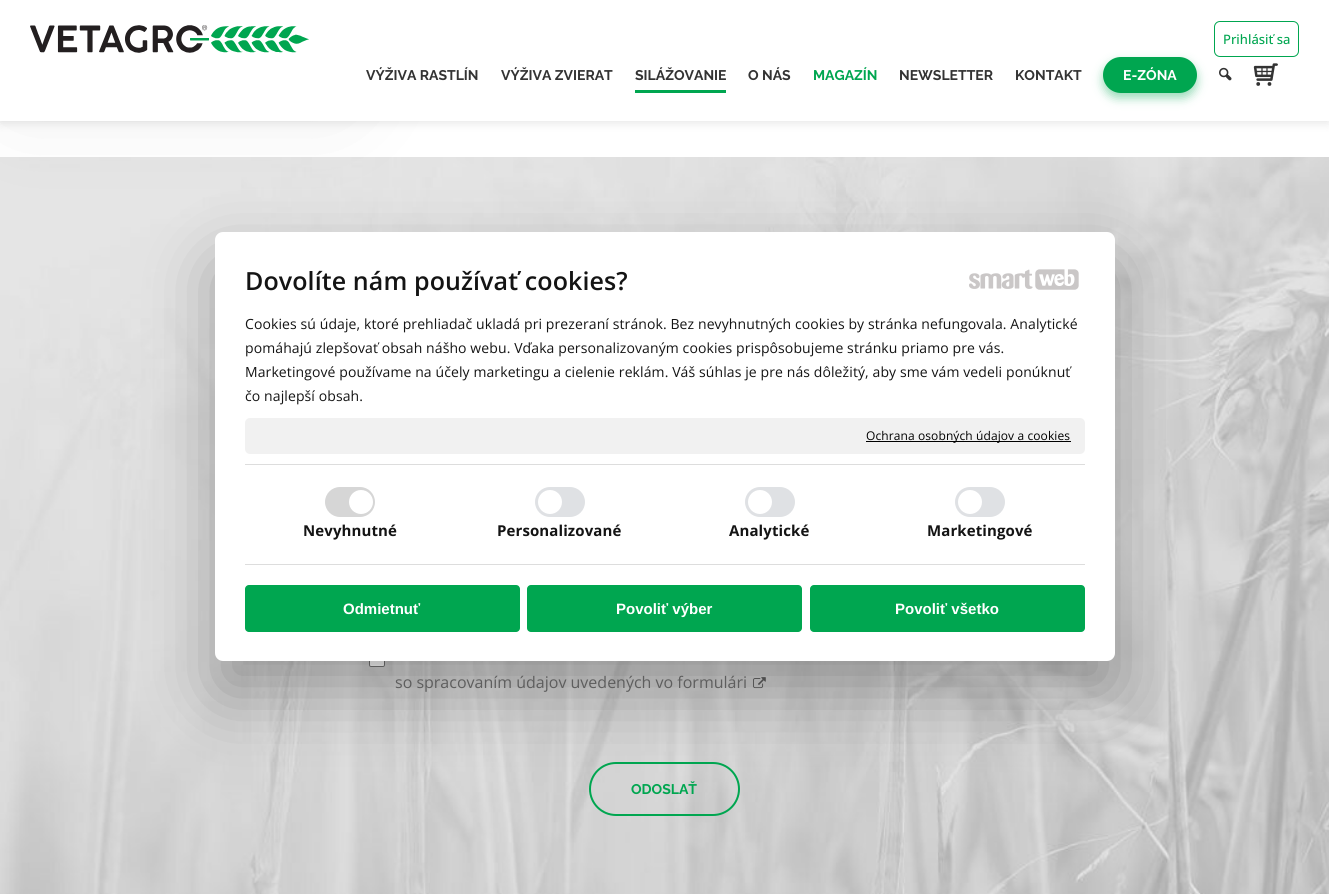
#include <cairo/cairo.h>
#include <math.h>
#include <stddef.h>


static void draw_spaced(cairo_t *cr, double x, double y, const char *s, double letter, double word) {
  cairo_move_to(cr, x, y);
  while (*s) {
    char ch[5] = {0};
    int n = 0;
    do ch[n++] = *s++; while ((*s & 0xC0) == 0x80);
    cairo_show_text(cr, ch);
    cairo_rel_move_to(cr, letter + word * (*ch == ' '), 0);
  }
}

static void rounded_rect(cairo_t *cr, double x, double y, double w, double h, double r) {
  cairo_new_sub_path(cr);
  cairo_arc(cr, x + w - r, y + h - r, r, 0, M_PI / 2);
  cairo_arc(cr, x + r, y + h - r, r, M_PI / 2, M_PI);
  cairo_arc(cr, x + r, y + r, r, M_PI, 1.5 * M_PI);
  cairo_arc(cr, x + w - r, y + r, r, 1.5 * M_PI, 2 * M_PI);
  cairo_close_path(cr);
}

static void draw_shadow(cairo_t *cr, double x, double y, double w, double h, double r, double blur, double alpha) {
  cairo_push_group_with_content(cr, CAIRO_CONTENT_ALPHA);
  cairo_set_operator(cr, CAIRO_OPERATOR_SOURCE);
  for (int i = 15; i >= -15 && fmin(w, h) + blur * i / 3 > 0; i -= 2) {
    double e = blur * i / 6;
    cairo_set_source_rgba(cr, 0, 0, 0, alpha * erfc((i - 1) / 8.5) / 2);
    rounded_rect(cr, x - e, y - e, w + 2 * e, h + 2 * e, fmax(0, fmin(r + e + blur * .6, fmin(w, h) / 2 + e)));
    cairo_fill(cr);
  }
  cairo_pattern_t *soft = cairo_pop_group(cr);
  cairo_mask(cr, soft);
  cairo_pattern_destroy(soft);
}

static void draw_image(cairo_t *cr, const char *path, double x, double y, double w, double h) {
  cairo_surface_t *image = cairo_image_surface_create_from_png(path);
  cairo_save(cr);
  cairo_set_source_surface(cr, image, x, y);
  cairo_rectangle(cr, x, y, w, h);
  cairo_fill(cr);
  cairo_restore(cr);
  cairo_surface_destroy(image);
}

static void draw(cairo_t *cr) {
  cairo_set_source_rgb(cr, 1, 1, 1);
  cairo_paint(cr);
  draw_image(cr, "images/6.png", 0, 157, 1329, 737);
  cairo_set_source_rgb(cr, 0, 0, 0);
  draw_shadow(cr, 15, -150, 325, 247, 0, 50, 0.1);
  draw_shadow(cr, 0, 2, 1329, 121, 0, 5, 0.1);
  cairo_set_source_rgb(cr, 1, 1, 1);
  cairo_rectangle(cr, 0, 0, 1329, 121);
  cairo_fill(cr);
  draw_image(cr, "images/1.png", 30, 25, 279, 28);
  rounded_rect(cr, 1214.5, 21.5, 84, 35, 5.5);
  cairo_set_source_rgb(cr, 0, 166 / 255.0, 80 / 255.0);
  cairo_set_line_width(cr, 1);
  cairo_stroke(cr);
  cairo_rectangle(cr, 635, 90, 91, 3);
  cairo_fill(cr);
  cairo_set_source_rgb(cr, 0, 166 / 255.0, 80 / 255.0);
  draw_shadow(cr, 1103, 62, 94, 36, 18, 5, 0.4);
  cairo_set_source_rgb(cr, 0, 166 / 255.0, 80 / 255.0);
  rounded_rect(cr, 1103, 57, 94, 36, 18);
  cairo_fill(cr);
  draw_image(cr, "images/2.png", 1219, 67, 13, 14);
  draw_image(cr, "images/3.png", 1253, 63, 25, 23);
  cairo_set_source_rgb(cr, 1, 1, 1);
  rounded_rect(cr, 369.5, 651.5, 15, 15, 1.5);
  cairo_fill_preserve(cr);
  cairo_set_source_rgb(cr, 118 / 255.0, 118 / 255.0, 118 / 255.0);
  cairo_stroke(cr);
  draw_image(cr, "images/7.png", 753, 677, 13, 12);
  rounded_rect(cr, 590, 763, 149, 52, 26);
  cairo_set_source_rgb(cr, 0, 166 / 255.0, 80 / 255.0);
  cairo_set_line_width(cr, 2);
  cairo_stroke(cr);
  cairo_set_source_rgb(cr, 0, 0, 0);
  draw_shadow(cr, 215, 264, 900, 429, 8, 34, 0.3);
  cairo_set_source_rgb(cr, 1, 1, 1);
  rounded_rect(cr, 215, 232, 900, 429, 8);
  cairo_fill(cr);
  draw_image(cr, "images/4.png", 969, 269, 64, 20);
  draw_image(cr, "images/5.png", 1035, 269, 44, 21);
  cairo_set_source_rgb(cr, 241 / 255.0, 241 / 255.0, 241 / 255.0);
  rounded_rect(cr, 245, 418, 840, 36, 5);
  cairo_fill(cr);
  cairo_set_source_rgb(cr, 0, 0, 0);
  cairo_rectangle(cr, 866, 441, 205, 1);
  cairo_fill(cr);
  cairo_set_source_rgb(cr, 221 / 255.0, 221 / 255.0, 221 / 255.0);
  cairo_rectangle(cr, 245, 464, 840, 1);
  cairo_fill(cr);
  cairo_rectangle(cr, 245, 564, 840, 1);
  cairo_fill(cr);
  cairo_set_source_rgb(cr, 214 / 255.0, 214 / 255.0, 214 / 255.0);
  rounded_rect(cr, 325, 487, 50, 30, 15);
  cairo_fill(cr);
  cairo_set_source_rgb(cr, 1, 1, 1);
  cairo_arc(cr, 361, 502, 12, 0, 2 * M_PI);
  cairo_fill(cr);
  cairo_set_source_rgb(cr, 223 / 255.0, 225 / 255.0, 228 / 255.0);
  rounded_rect(cr, 535, 487, 50, 30, 15);
  cairo_fill(cr);
  cairo_set_source_rgb(cr, 1, 1, 1);
  cairo_arc(cr, 550, 502, 12, 0, 2 * M_PI);
  cairo_fill(cr);
  cairo_set_source_rgb(cr, 223 / 255.0, 225 / 255.0, 228 / 255.0);
  rounded_rect(cr, 745, 487, 50, 30, 15);
  cairo_fill(cr);
  cairo_set_source_rgb(cr, 1, 1, 1);
  cairo_arc(cr, 760, 502, 12, 0, 2 * M_PI);
  cairo_fill(cr);
  cairo_set_source_rgb(cr, 223 / 255.0, 225 / 255.0, 228 / 255.0);
  rounded_rect(cr, 955, 487, 50, 30, 15);
  cairo_fill(cr);
  cairo_set_source_rgb(cr, 1, 1, 1);
  cairo_arc(cr, 970, 502, 12, 0, 2 * M_PI);
  cairo_fill(cr);
  cairo_set_source_rgb(cr, 0, 166 / 255.0, 80 / 255.0);
  rounded_rect(cr, 245, 585, 275, 47, 4);
  cairo_fill(cr);
  rounded_rect(cr, 527, 585, 275, 47, 4);
  cairo_fill(cr);
  rounded_rect(cr, 810, 585, 275, 47, 4);
  cairo_fill(cr);
  cairo_select_font_face(cr, "Open Sans Medium", CAIRO_FONT_SLANT_NORMAL, CAIRO_FONT_WEIGHT_NORMAL);
  cairo_set_font_size(cr, 13);
  cairo_move_to(cr, 1223, 44);
  cairo_show_text(cr, "Prihlásiť sa");
  cairo_select_font_face(cr, "Raleway", CAIRO_FONT_SLANT_NORMAL, CAIRO_FONT_WEIGHT_BOLD);
  cairo_set_font_size(cr, 14);
  cairo_set_source_rgb(cr, 51 / 255.0, 51 / 255.0, 51 / 255.0);
  cairo_move_to(cr, 366, 80);
  cairo_show_text(cr, "VÝŽIVA RASTLÍN");
  cairo_move_to(cr, 501, 80);
  cairo_show_text(cr, "VÝŽIVA ZVIERAT");
  cairo_move_to(cr, 635, 80);
  cairo_show_text(cr, "SILÁŽOVANIE");
  cairo_move_to(cr, 748, 80);
  cairo_show_text(cr, "O NÁS");
  cairo_set_source_rgb(cr, 0, 166 / 255.0, 80 / 255.0);
  cairo_move_to(cr, 813, 80);
  cairo_show_text(cr, "MAGAZÍN");
  cairo_set_source_rgb(cr, 51 / 255.0, 51 / 255.0, 51 / 255.0);
  cairo_move_to(cr, 899, 80);
  cairo_show_text(cr, "NEWSLETTER");
  cairo_move_to(cr, 1015, 80);
  cairo_show_text(cr, "KONTAKT");
  cairo_set_source_rgb(cr, 1, 1, 1);
  cairo_move_to(cr, 1123, 80);
  cairo_show_text(cr, "E-ZÓNA");
  cairo_select_font_face(cr, "Open Sans SemiBold", CAIRO_FONT_SLANT_NORMAL, CAIRO_FONT_WEIGHT_NORMAL);
  cairo_set_font_size(cr, 25);
  cairo_set_source_rgb(cr, 20 / 255.0, 20 / 255.0, 20 / 255.0);
  draw_spaced(cr, 245, 290, "Dovolíte nám používať cookies?", 0.1, 0);
  cairo_select_font_face(cr, "Open Sans", CAIRO_FONT_SLANT_NORMAL, CAIRO_FONT_WEIGHT_NORMAL);
  cairo_set_font_size(cr, 14);
  draw_spaced(cr, 245, 329, "Cookies sú údaje, ktoré prehliadač ukladá pri prezeraní stránok. Bez nevyhnutných cookies by stránka nefungovala. Analytické", 0.1, 0);
  draw_spaced(cr, 245, 353, "pomáhajú zlepšovať obsah nášho webu. Vďaka personalizovaným cookies prispôsobujeme stránku priamo pre vás.", 0.1, 0);
  draw_spaced(cr, 245, 377, "Marketingové používame na účely marketingu a cielenie reklám. Váš súhlas je pre nás dôležitý, aby sme vám vedeli ponúknuť", 0.1, 0);
  draw_spaced(cr, 245, 401, "čo najlepší obsah.", 0.1, 0);
  cairo_set_font_size(cr, 12);
  cairo_set_source_rgb(cr, 0, 0, 0);
  draw_spaced(cr, 866, 440, "Ochrana osobných údajov a cookies", 0.1, 0);
  cairo_select_font_face(cr, "Open Sans", CAIRO_FONT_SLANT_NORMAL, CAIRO_FONT_WEIGHT_BOLD);
  cairo_set_font_size(cr, 15);
  cairo_set_source_rgb(cr, 20 / 255.0, 20 / 255.0, 20 / 255.0);
  draw_spaced(cr, 303, 536, "Nevyhnutné", 0.1, 0);
  draw_spaced(cr, 497, 536, "Personalizované", 0.1, 0);
  draw_spaced(cr, 729, 536, "Analytické", 0.1, 0);
  draw_spaced(cr, 927, 536, "Marketingové", 0.1, 0);
  cairo_select_font_face(cr, "Liberation Sans", CAIRO_FONT_SLANT_NORMAL, CAIRO_FONT_WEIGHT_BOLD);
  cairo_set_source_rgb(cr, 1, 1, 1);
  cairo_move_to(cr, 343, 614);
  cairo_show_text(cr, "Odmietnuť");
  cairo_move_to(cr, 616, 614);
  cairo_show_text(cr, "Povoliť výber");
  cairo_move_to(cr, 895, 614);
  cairo_show_text(cr, "Povoliť všetko");
  cairo_select_font_face(cr, "Open Sans", CAIRO_FONT_SLANT_NORMAL, CAIRO_FONT_WEIGHT_NORMAL);
  cairo_set_font_size(cr, 16);
  cairo_set_source_rgb(cr, 94 / 255.0, 94 / 255.0, 94 / 255.0);
  cairo_move_to(cr, 395, 688);
  cairo_show_text(cr, "so spracovaním údajov uvedených vo formulári");
  cairo_select_font_face(cr, "Raleway", CAIRO_FONT_SLANT_NORMAL, CAIRO_FONT_WEIGHT_BOLD);
  cairo_set_font_size(cr, 14);
  cairo_set_source_rgb(cr, 0, 166 / 255.0, 80 / 255.0);
  cairo_move_to(cr, 631, 794);
  cairo_show_text(cr, "ODOSLAŤ");
}

int main(void) {
  cairo_surface_t *surface = cairo_image_surface_create(CAIRO_FORMAT_RGB24, 1329, 894);
  cairo_t *cr = cairo_create(surface);
  cairo_font_options_t *options = cairo_font_options_create();
  cairo_font_options_set_hint_metrics(options, CAIRO_HINT_METRICS_OFF);
  cairo_font_options_set_hint_style(options, CAIRO_HINT_STYLE_NONE);
  cairo_set_font_options(cr, options);
  cairo_set_miter_limit(cr, 4);
  draw(cr);
  cairo_surface_write_to_png(surface, "out.png");
  cairo_font_options_destroy(options);
  cairo_destroy(cr);
  cairo_surface_destroy(surface);
  return 0;
}
